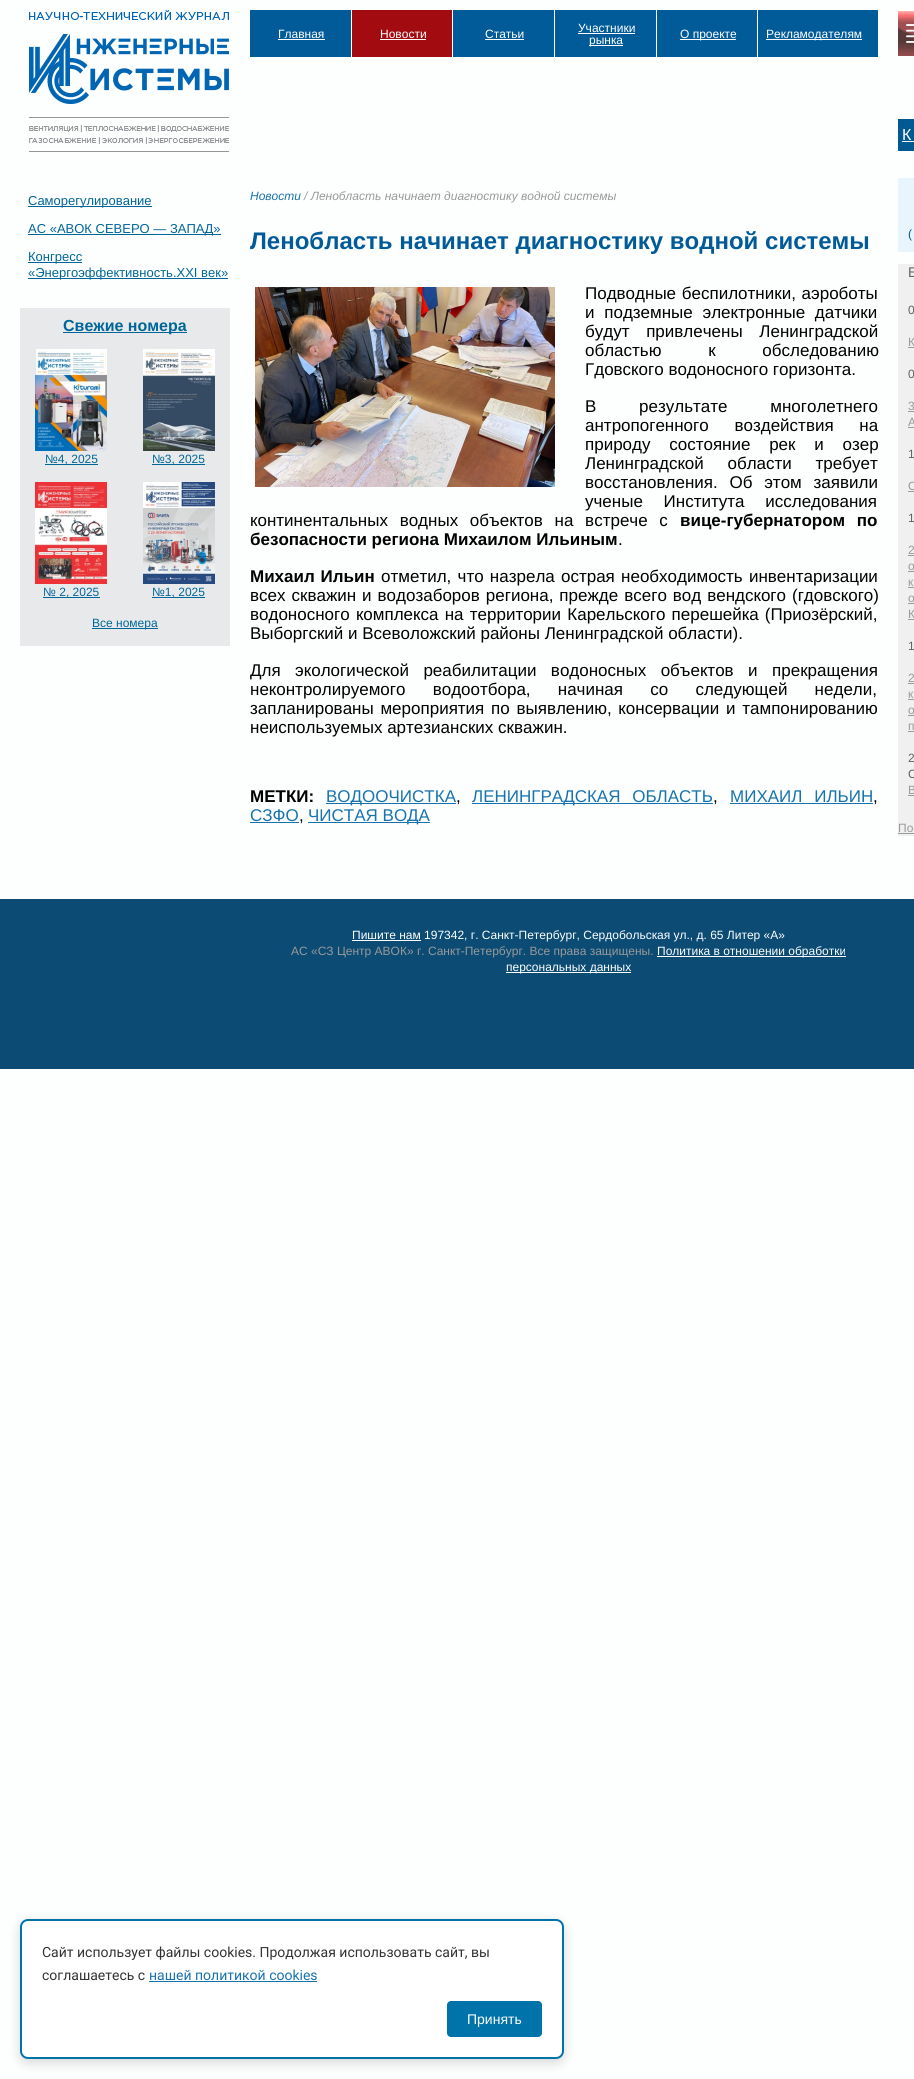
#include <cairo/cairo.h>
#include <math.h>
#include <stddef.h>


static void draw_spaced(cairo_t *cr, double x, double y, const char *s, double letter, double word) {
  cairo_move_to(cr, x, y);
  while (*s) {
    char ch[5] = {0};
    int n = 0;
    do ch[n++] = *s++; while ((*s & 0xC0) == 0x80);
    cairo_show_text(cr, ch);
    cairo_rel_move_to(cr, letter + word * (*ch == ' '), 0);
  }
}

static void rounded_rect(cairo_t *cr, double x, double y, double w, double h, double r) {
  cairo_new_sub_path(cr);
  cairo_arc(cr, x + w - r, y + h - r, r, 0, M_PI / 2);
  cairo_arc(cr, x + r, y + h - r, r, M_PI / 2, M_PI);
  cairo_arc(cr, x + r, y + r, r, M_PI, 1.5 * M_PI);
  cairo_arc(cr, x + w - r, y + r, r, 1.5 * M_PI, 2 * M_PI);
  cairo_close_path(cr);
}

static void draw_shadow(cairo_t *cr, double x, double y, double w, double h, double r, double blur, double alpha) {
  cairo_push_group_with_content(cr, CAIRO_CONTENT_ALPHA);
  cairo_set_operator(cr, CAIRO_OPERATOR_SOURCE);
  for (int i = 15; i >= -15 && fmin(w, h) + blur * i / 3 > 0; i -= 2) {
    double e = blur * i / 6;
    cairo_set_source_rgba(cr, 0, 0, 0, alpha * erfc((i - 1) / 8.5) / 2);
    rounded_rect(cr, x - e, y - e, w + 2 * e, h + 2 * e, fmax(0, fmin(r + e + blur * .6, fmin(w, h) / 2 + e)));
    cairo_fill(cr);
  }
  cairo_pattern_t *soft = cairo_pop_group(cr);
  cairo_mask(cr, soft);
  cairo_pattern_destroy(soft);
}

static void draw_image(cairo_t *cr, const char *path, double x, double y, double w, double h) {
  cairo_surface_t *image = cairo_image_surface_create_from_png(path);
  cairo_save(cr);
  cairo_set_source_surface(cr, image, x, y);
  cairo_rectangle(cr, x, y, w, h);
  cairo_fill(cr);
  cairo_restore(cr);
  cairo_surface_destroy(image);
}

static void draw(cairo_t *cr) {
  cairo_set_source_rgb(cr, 253 / 255.0, 254 / 255.0, 254 / 255.0);
  cairo_paint(cr);
  draw_image(cr, "images/1.png", 29, 10, 201, 142);
  cairo_set_source_rgb(cr, 0, 91 / 255.0, 152 / 255.0);
  cairo_rectangle(cr, 250, 10, 628, 47);
  cairo_fill(cr);
  cairo_set_source_rgb(cr, 1, 1, 1);
  cairo_rectangle(cr, 278, 39, 47, 1);
  cairo_fill(cr);
  cairo_set_source_rgb(cr, 162 / 255.0, 12 / 255.0, 17 / 255.0);
  cairo_rectangle(cr, 352, 10, 100, 47);
  cairo_fill(cr);
  cairo_set_source_rgb(cr, 1, 1, 1);
  cairo_rectangle(cr, 351, 10, 1, 47);
  cairo_fill(cr);
  cairo_rectangle(cr, 380, 39, 46, 1);
  cairo_fill(cr);
  cairo_rectangle(cr, 452, 10, 1, 47);
  cairo_fill(cr);
  cairo_rectangle(cr, 485, 39, 39, 1);
  cairo_fill(cr);
  cairo_rectangle(cr, 554, 10, 1, 47);
  cairo_fill(cr);
  cairo_rectangle(cr, 578, 33, 57, 1);
  cairo_fill(cr);
  cairo_rectangle(cr, 589, 45, 34, 1);
  cairo_fill(cr);
  cairo_rectangle(cr, 656, 10, 1, 47);
  cairo_fill(cr);
  cairo_rectangle(cr, 680, 39, 56, 1);
  cairo_fill(cr);
  cairo_rectangle(cr, 757, 10, 1, 47);
  cairo_fill(cr);
  cairo_rectangle(cr, 766, 39, 96, 1);
  cairo_fill(cr);
  draw_image(cr, "images/2.png", 898, 11, 16, 45);
  cairo_set_source_rgb(cr, 0, 89 / 255.0, 144 / 255.0);
  cairo_rectangle(cr, 898, 119, 16, 32);
  cairo_fill(cr);
  cairo_set_source_rgb(cr, 1, 1, 1);
  cairo_rectangle(cr, 902, 141, 12, 1);
  cairo_fill(cr);
  cairo_set_source_rgb(cr, 0, 102 / 255.0, 153 / 255.0);
  cairo_rectangle(cr, 28, 206, 124, 1);
  cairo_fill(cr);
  cairo_rectangle(cr, 28, 234, 193, 1);
  cairo_fill(cr);
  cairo_rectangle(cr, 28, 262, 54, 1);
  cairo_fill(cr);
  cairo_rectangle(cr, 28, 278, 200, 1);
  cairo_fill(cr);
  cairo_set_source_rgb(cr, 232 / 255.0, 233 / 255.0, 235 / 255.0);
  cairo_rectangle(cr, 20, 308, 210, 338);
  cairo_fill(cr);
  cairo_set_source_rgb(cr, 0, 102 / 255.0, 153 / 255.0);
  cairo_rectangle(cr, 63, 332, 124, 1);
  cairo_fill(cr);
  draw_image(cr, "images/3.png", 35, 349, 72, 102);
  cairo_rectangle(cr, 45, 464, 53, 1);
  cairo_fill(cr);
  draw_image(cr, "images/4.png", 143, 349, 72, 102);
  cairo_rectangle(cr, 152, 464, 53, 1);
  cairo_fill(cr);
  draw_image(cr, "images/5.png", 35, 482, 72, 102);
  cairo_rectangle(cr, 43, 597, 57, 1);
  cairo_fill(cr);
  draw_image(cr, "images/6.png", 143, 482, 72, 102);
  cairo_rectangle(cr, 152, 597, 53, 1);
  cairo_fill(cr);
  cairo_rectangle(cr, 92, 628, 66, 1);
  cairo_fill(cr);
  draw_image(cr, "images/7.png", 255, 287, 300, 200);
  cairo_set_source_rgb(cr, 23 / 255.0, 115 / 255.0, 174 / 255.0);
  cairo_rectangle(cr, 326, 803, 130, 1);
  cairo_fill(cr);
  cairo_rectangle(cr, 472, 803, 241, 1);
  cairo_fill(cr);
  cairo_rectangle(cr, 730, 803, 143, 1);
  cairo_fill(cr);
  cairo_rectangle(cr, 250, 822, 49, 1);
  cairo_fill(cr);
  cairo_rectangle(cr, 308, 822, 122, 1);
  cairo_fill(cr);
  cairo_set_source_rgb(cr, 232 / 255.0, 245 / 255.0, 252 / 255.0);
  cairo_rectangle(cr, 898, 178, 16, 74);
  cairo_fill(cr);
  cairo_set_source_rgb(cr, 240 / 255.0, 240 / 255.0, 240 / 255.0);
  cairo_rectangle(cr, 898, 264, 16, 572);
  cairo_fill(cr);
  cairo_set_source_rgb(cr, 155 / 255.0, 155 / 255.0, 155 / 255.0);
  cairo_rectangle(cr, 908, 347, 6, 1);
  cairo_fill(cr);
  cairo_rectangle(cr, 908, 411, 6, 1);
  cairo_fill(cr);
  cairo_rectangle(cr, 908, 427, 6, 1);
  cairo_fill(cr);
  cairo_rectangle(cr, 908, 491, 6, 1);
  cairo_fill(cr);
  cairo_rectangle(cr, 908, 555, 6, 1);
  cairo_fill(cr);
  cairo_rectangle(cr, 908, 571, 6, 1);
  cairo_fill(cr);
  cairo_rectangle(cr, 908, 587, 6, 1);
  cairo_fill(cr);
  cairo_rectangle(cr, 908, 603, 6, 1);
  cairo_fill(cr);
  cairo_rectangle(cr, 908, 619, 6, 1);
  cairo_fill(cr);
  cairo_rectangle(cr, 908, 683, 6, 1);
  cairo_fill(cr);
  cairo_rectangle(cr, 908, 699, 6, 1);
  cairo_fill(cr);
  cairo_rectangle(cr, 908, 715, 6, 1);
  cairo_fill(cr);
  cairo_rectangle(cr, 908, 731, 6, 1);
  cairo_fill(cr);
  cairo_rectangle(cr, 908, 795, 6, 1);
  cairo_fill(cr);
  cairo_rectangle(cr, 898, 833, 16, 1);
  cairo_fill(cr);
  cairo_set_source_rgb(cr, 11 / 255.0, 75 / 255.0, 116 / 255.0);
  cairo_rectangle(cr, 0, 899, 914, 170);
  cairo_fill(cr);
  cairo_set_source_rgb(cr, 1, 1, 1);
  cairo_rectangle(cr, 352, 940, 69, 1);
  cairo_fill(cr);
  cairo_rectangle(cr, 657, 956, 189, 1);
  cairo_fill(cr);
  cairo_rectangle(cr, 506, 972, 125, 1);
  cairo_fill(cr);
  cairo_set_source_rgb(cr, 0, 0, 0);
  draw_shadow(cr, 20, 1923, 544, 140, 8, 6, 0.15);
  cairo_set_source_rgb(cr, 1, 1, 1);
  rounded_rect(cr, 21, 1920, 542, 138, 7);
  cairo_fill_preserve(cr);
  cairo_set_source_rgb(cr, 0, 115 / 255.0, 170 / 255.0);
  cairo_stroke(cr);
  cairo_set_source_rgb(cr, 23 / 255.0, 115 / 255.0, 174 / 255.0);
  cairo_rectangle(cr, 149, 1981, 168, 1);
  cairo_fill(cr);
  cairo_set_source_rgb(cr, 0, 115 / 255.0, 170 / 255.0);
  rounded_rect(cr, 447, 2001, 95, 36, 4);
  cairo_fill(cr);
  cairo_select_font_face(cr, "Liberation Sans", CAIRO_FONT_SLANT_NORMAL, CAIRO_FONT_WEIGHT_NORMAL);
  cairo_set_font_size(cr, 12);
  cairo_set_source_rgb(cr, 1, 1, 1);
  cairo_move_to(cr, 278, 38);
  cairo_show_text(cr, "Главная");
  cairo_move_to(cr, 380, 38);
  cairo_show_text(cr, "Новости");
  cairo_move_to(cr, 485, 38);
  cairo_show_text(cr, "Статьи");
  cairo_move_to(cr, 578, 32);
  cairo_show_text(cr, "Участники");
  cairo_move_to(cr, 589, 44);
  cairo_show_text(cr, "рынка");
  cairo_move_to(cr, 680, 38);
  cairo_show_text(cr, "О проекте");
  cairo_move_to(cr, 766, 38);
  cairo_show_text(cr, "Рекламодателям");
  cairo_set_font_size(cr, 16);
  cairo_move_to(cr, 902, 140);
  cairo_show_text(cr, "К");
  cairo_set_font_size(cr, 13);
  cairo_set_source_rgb(cr, 0, 102 / 255.0, 153 / 255.0);
  cairo_move_to(cr, 28, 205);
  cairo_show_text(cr, "Саморегулирование");
  cairo_move_to(cr, 28, 233);
  cairo_show_text(cr, "АС «АВОК СЕВЕРО — ЗАПАД»");
  cairo_move_to(cr, 28, 261);
  cairo_show_text(cr, "Конгресс");
  cairo_move_to(cr, 28, 277);
  cairo_show_text(cr, "«Энергоэффективность.XXI век»");
  cairo_select_font_face(cr, "Liberation Sans", CAIRO_FONT_SLANT_NORMAL, CAIRO_FONT_WEIGHT_BOLD);
  cairo_set_font_size(cr, 16);
  cairo_move_to(cr, 63, 331);
  cairo_show_text(cr, "Свежие номера");
  cairo_select_font_face(cr, "Liberation Sans", CAIRO_FONT_SLANT_NORMAL, CAIRO_FONT_WEIGHT_NORMAL);
  cairo_set_font_size(cr, 12);
  cairo_move_to(cr, 45, 463);
  cairo_show_text(cr, "№4, 2025");
  cairo_move_to(cr, 152, 463);
  cairo_show_text(cr, "№3, 2025");
  cairo_move_to(cr, 43, 596);
  cairo_show_text(cr, "№ 2, 2025");
  cairo_move_to(cr, 152, 596);
  cairo_show_text(cr, "№1, 2025");
  cairo_move_to(cr, 92, 627);
  cairo_show_text(cr, "Все номера");
  cairo_select_font_face(cr, "Liberation Sans", CAIRO_FONT_SLANT_ITALIC, CAIRO_FONT_WEIGHT_NORMAL);
  cairo_set_source_rgb(cr, 23 / 255.0, 115 / 255.0, 174 / 255.0);
  cairo_move_to(cr, 250, 200);
  cairo_show_text(cr, "Новости");
  cairo_set_source_rgb(cr, 153 / 255.0, 153 / 255.0, 153 / 255.0);
  cairo_move_to(cr, 304, 200);
  cairo_show_text(cr, "/ Ленобласть начинает диагностику водной системы");
  cairo_select_font_face(cr, "Liberation Sans", CAIRO_FONT_SLANT_NORMAL, CAIRO_FONT_WEIGHT_BOLD);
  cairo_set_font_size(cr, 24);
  cairo_set_source_rgb(cr, 0, 91 / 255.0, 152 / 255.0);
  cairo_move_to(cr, 250, 249);
  cairo_show_text(cr, "Ленобласть начинает диагностику водной системы");
  cairo_select_font_face(cr, "Liberation Sans", CAIRO_FONT_SLANT_NORMAL, CAIRO_FONT_WEIGHT_NORMAL);
  cairo_set_font_size(cr, 17);
  cairo_set_source_rgb(cr, 0, 0, 0);
  draw_spaced(cr, 585, 299, "Подводные беспилотники, аэроботы", 0, 1);
  draw_spaced(cr, 585, 318, "и подземные электронные датчики", 0, 5);
  draw_spaced(cr, 585, 337, "будут привлечены Ленинградской", 0, 12);
  draw_spaced(cr, 585, 356, "областью к обследованию", 0, 42);
  cairo_move_to(cr, 585, 375);
  cairo_show_text(cr, "Гдовского водоносного горизонта.");
  draw_spaced(cr, 585, 412, "В результате многолетнего", 0, 38);
  draw_spaced(cr, 585, 431, "антропогенного воздействия на", 0, 21);
  draw_spaced(cr, 585, 450, "природу состояние рек и озер", 0, 14);
  draw_spaced(cr, 585, 469, "Ленинградской области требует", 0, 19);
  draw_spaced(cr, 585, 488, "восстановления. Об этом заявили", 0, 7);
  draw_spaced(cr, 585, 507, "ученые Института исследования", 0, 16);
  draw_spaced(cr, 250, 526, "континентальных водных объектов на встрече с", 0, 7);
  cairo_select_font_face(cr, "Liberation Sans", CAIRO_FONT_SLANT_NORMAL, CAIRO_FONT_WEIGHT_BOLD);
  draw_spaced(cr, 680, 526, "вице-губернатором по", 0, 7);
  cairo_move_to(cr, 250, 545);
  cairo_show_text(cr, "безопасности региона Михаилом Ильиным");
  cairo_select_font_face(cr, "Liberation Sans", CAIRO_FONT_SLANT_NORMAL, CAIRO_FONT_WEIGHT_NORMAL);
  cairo_move_to(cr, 618, 545);
  cairo_show_text(cr, ".");
  cairo_select_font_face(cr, "Liberation Sans", CAIRO_FONT_SLANT_NORMAL, CAIRO_FONT_WEIGHT_BOLD);
  draw_spaced(cr, 250, 582, "Михаил Ильин", 0, 1);
  cairo_select_font_face(cr, "Liberation Sans", CAIRO_FONT_SLANT_NORMAL, CAIRO_FONT_WEIGHT_NORMAL);
  draw_spaced(cr, 381, 582, "отметил, что назрела острая необходимость инвентаризации", 0, 1.5);
  draw_spaced(cr, 250, 601, "всех скважин и водозаборов региона, прежде всего вод вендского (гдовского)", 0, 1.25);
  draw_spaced(cr, 250, 620, "водоносного комплекса на территории Карельского перешейка (Приозёрский,", 0, 1.5);
  cairo_move_to(cr, 250, 639);
  cairo_show_text(cr, "Выборгский и Всеволожский районы Ленинградской области).");
  draw_spaced(cr, 250, 676, "Для экологической реабилитации водоносных объектов и прекращения", 0, 9.75);
  draw_spaced(cr, 250, 695, "неконтролируемого водоотбора, начиная со следующей недели,", 0, 22.5);
  draw_spaced(cr, 250, 714, "запланированы мероприятия по выявлению, консервации и тампонированию", 0, 2);
  cairo_move_to(cr, 250, 733);
  cairo_show_text(cr, "неиспользуемых артезианских скважин.");
  cairo_select_font_face(cr, "Liberation Sans", CAIRO_FONT_SLANT_NORMAL, CAIRO_FONT_WEIGHT_BOLD);
  cairo_move_to(cr, 250, 802);
  cairo_show_text(cr, "МЕТКИ:");
  cairo_select_font_face(cr, "Liberation Sans", CAIRO_FONT_SLANT_NORMAL, CAIRO_FONT_WEIGHT_NORMAL);
  cairo_set_source_rgb(cr, 23 / 255.0, 115 / 255.0, 174 / 255.0);
  cairo_move_to(cr, 326, 802);
  cairo_show_text(cr, "ВОДООЧИСТКА");
  cairo_set_source_rgb(cr, 0, 0, 0);
  cairo_move_to(cr, 456, 802);
  cairo_show_text(cr, ",");
  cairo_set_source_rgb(cr, 23 / 255.0, 115 / 255.0, 174 / 255.0);
  draw_spaced(cr, 472, 802, "ЛЕНИНГРАДСКАЯ ОБЛАСТЬ", 0, 7);
  cairo_set_source_rgb(cr, 0, 0, 0);
  cairo_move_to(cr, 713, 802);
  cairo_show_text(cr, ",");
  cairo_set_source_rgb(cr, 23 / 255.0, 115 / 255.0, 174 / 255.0);
  draw_spaced(cr, 730, 802, "МИХАИЛ ИЛЬИН", 0, 7);
  cairo_set_source_rgb(cr, 0, 0, 0);
  cairo_move_to(cr, 873, 802);
  cairo_show_text(cr, ",");
  cairo_set_source_rgb(cr, 23 / 255.0, 115 / 255.0, 174 / 255.0);
  cairo_move_to(cr, 250, 821);
  cairo_show_text(cr, "СЗФО");
  cairo_set_source_rgb(cr, 0, 0, 0);
  cairo_move_to(cr, 299, 821);
  cairo_show_text(cr, ",");
  cairo_set_source_rgb(cr, 23 / 255.0, 115 / 255.0, 174 / 255.0);
  cairo_move_to(cr, 308, 821);
  cairo_show_text(cr, "ЧИСТАЯ ВОДА");
  cairo_set_font_size(cr, 12);
  cairo_set_source_rgb(cr, 0, 89 / 255.0, 144 / 255.0);
  cairo_move_to(cr, 908, 238);
  cairo_show_text(cr, "(");
  cairo_set_font_size(cr, 14);
  cairo_set_source_rgb(cr, 97 / 255.0, 97 / 255.0, 97 / 255.0);
  cairo_move_to(cr, 908, 277);
  cairo_show_text(cr, "Б");
  cairo_set_font_size(cr, 12);
  cairo_move_to(cr, 908, 314);
  cairo_show_text(cr, "0");
  cairo_set_source_rgb(cr, 153 / 255.0, 153 / 255.0, 153 / 255.0);
  cairo_move_to(cr, 908, 346);
  cairo_show_text(cr, "К");
  cairo_set_source_rgb(cr, 97 / 255.0, 97 / 255.0, 97 / 255.0);
  cairo_move_to(cr, 908, 378);
  cairo_show_text(cr, "0");
  cairo_set_source_rgb(cr, 153 / 255.0, 153 / 255.0, 153 / 255.0);
  cairo_move_to(cr, 908, 410);
  cairo_show_text(cr, "3");
  cairo_move_to(cr, 908, 426);
  cairo_show_text(cr, "A");
  cairo_set_source_rgb(cr, 97 / 255.0, 97 / 255.0, 97 / 255.0);
  cairo_move_to(cr, 908, 458);
  cairo_show_text(cr, "1");
  cairo_set_source_rgb(cr, 153 / 255.0, 153 / 255.0, 153 / 255.0);
  cairo_move_to(cr, 908, 490);
  cairo_show_text(cr, "С");
  cairo_set_source_rgb(cr, 97 / 255.0, 97 / 255.0, 97 / 255.0);
  cairo_move_to(cr, 908, 522);
  cairo_show_text(cr, "1");
  cairo_set_source_rgb(cr, 153 / 255.0, 153 / 255.0, 153 / 255.0);
  cairo_move_to(cr, 908, 554);
  cairo_show_text(cr, "2");
  cairo_move_to(cr, 908, 570);
  cairo_show_text(cr, "о");
  cairo_move_to(cr, 908, 586);
  cairo_show_text(cr, "к");
  cairo_move_to(cr, 908, 602);
  cairo_show_text(cr, "о");
  cairo_move_to(cr, 908, 618);
  cairo_show_text(cr, "К");
  cairo_set_source_rgb(cr, 97 / 255.0, 97 / 255.0, 97 / 255.0);
  cairo_move_to(cr, 908, 650);
  cairo_show_text(cr, "1");
  cairo_set_source_rgb(cr, 153 / 255.0, 153 / 255.0, 153 / 255.0);
  cairo_move_to(cr, 908, 682);
  cairo_show_text(cr, "2");
  cairo_move_to(cr, 908, 698);
  cairo_show_text(cr, "к");
  cairo_move_to(cr, 908, 714);
  cairo_show_text(cr, "о");
  cairo_move_to(cr, 908, 730);
  cairo_show_text(cr, "п");
  cairo_set_source_rgb(cr, 97 / 255.0, 97 / 255.0, 97 / 255.0);
  cairo_move_to(cr, 908, 762);
  cairo_show_text(cr, "2");
  cairo_move_to(cr, 908, 778);
  cairo_show_text(cr, "С");
  cairo_set_source_rgb(cr, 153 / 255.0, 153 / 255.0, 153 / 255.0);
  cairo_move_to(cr, 908, 794);
  cairo_show_text(cr, "В");
  cairo_move_to(cr, 898, 832);
  cairo_show_text(cr, "По");
  cairo_set_source_rgb(cr, 1, 1, 1);
  cairo_move_to(cr, 352, 939);
  cairo_show_text(cr, "Пишите нам 197342, г. Санкт-Петербург, Сердобольская ул., д. 65 Литер «А»");
  cairo_set_source_rgb(cr, 153 / 255.0, 153 / 255.0, 153 / 255.0);
  cairo_move_to(cr, 291, 955);
  cairo_show_text(cr, "АС «СЗ Центр АВОК» г. Санкт-Петербург. Все права защищены.");
  cairo_set_source_rgb(cr, 1, 1, 1);
  cairo_move_to(cr, 657, 955);
  cairo_show_text(cr, "Политика в отношении обработки");
  cairo_move_to(cr, 506, 971);
  cairo_show_text(cr, "персональных данных");
  cairo_select_font_face(cr, "Roboto", CAIRO_FONT_SLANT_NORMAL, CAIRO_FONT_WEIGHT_NORMAL);
  cairo_set_font_size(cr, 14);
  cairo_set_source_rgb(cr, 51 / 255.0, 51 / 255.0, 51 / 255.0);
  cairo_move_to(cr, 42, 1957);
  cairo_show_text(cr, "Сайт использует файлы cookies. Продолжая использовать сайт, вы");
  cairo_move_to(cr, 42, 1980);
  cairo_show_text(cr, "соглашаетесь с");
  cairo_set_source_rgb(cr, 23 / 255.0, 115 / 255.0, 174 / 255.0);
  cairo_move_to(cr, 149, 1980);
  cairo_show_text(cr, "нашей политикой cookies");
  cairo_select_font_face(cr, "Liberation Sans", CAIRO_FONT_SLANT_NORMAL, CAIRO_FONT_WEIGHT_NORMAL);
  cairo_set_source_rgb(cr, 1, 1, 1);
  cairo_move_to(cr, 467, 2024);
  cairo_show_text(cr, "Принять");
}

int main(void) {
  cairo_surface_t *surface = cairo_image_surface_create(CAIRO_FORMAT_RGB24, 914, 2079);
  cairo_t *cr = cairo_create(surface);
  cairo_font_options_t *options = cairo_font_options_create();
  cairo_font_options_set_hint_metrics(options, CAIRO_HINT_METRICS_OFF);
  cairo_font_options_set_hint_style(options, CAIRO_HINT_STYLE_NONE);
  cairo_set_font_options(cr, options);
  cairo_set_miter_limit(cr, 4);
  draw(cr);
  cairo_surface_write_to_png(surface, "out.png");
  cairo_font_options_destroy(options);
  cairo_destroy(cr);
  cairo_surface_destroy(surface);
  return 0;
}
